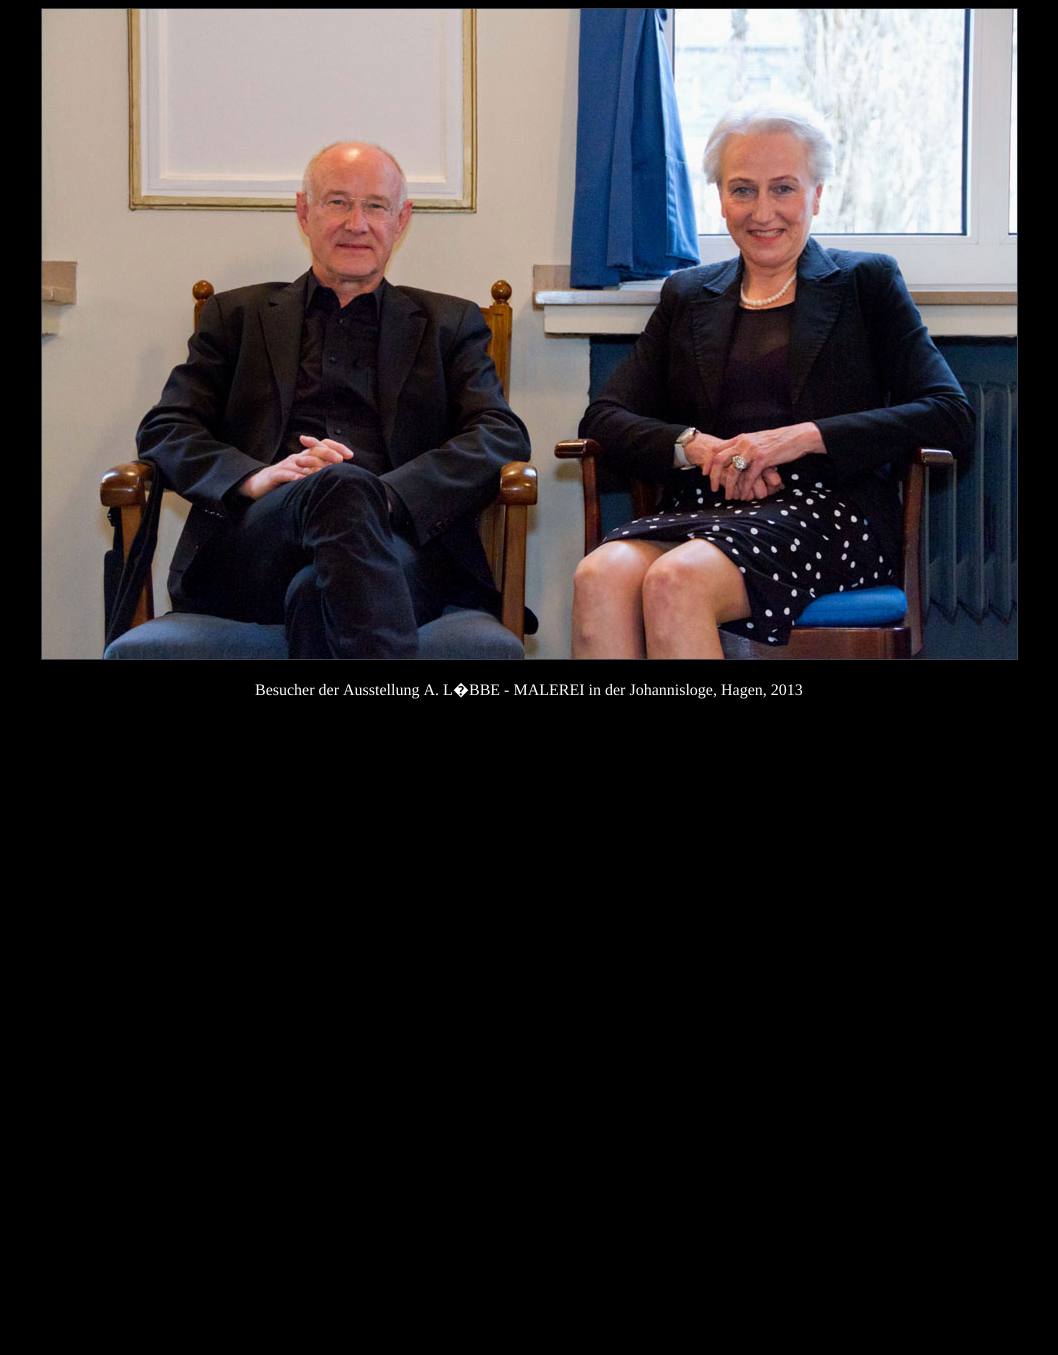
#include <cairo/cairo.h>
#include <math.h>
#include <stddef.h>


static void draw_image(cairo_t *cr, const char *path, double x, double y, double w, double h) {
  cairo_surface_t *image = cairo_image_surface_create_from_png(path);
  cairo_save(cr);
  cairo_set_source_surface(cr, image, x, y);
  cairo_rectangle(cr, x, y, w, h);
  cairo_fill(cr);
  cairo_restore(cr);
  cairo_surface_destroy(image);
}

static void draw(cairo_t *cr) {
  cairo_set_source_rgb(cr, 0, 0, 0);
  cairo_paint(cr);
  cairo_rectangle(cr, 41.5, 8.5, 976, 651);
  cairo_set_source_rgb(cr, 60 / 255.0, 68 / 255.0, 81 / 255.0);
  cairo_set_line_width(cr, 1);
  cairo_stroke(cr);
  draw_image(cr, "images/1.png", 42, 9, 975, 650);
  cairo_select_font_face(cr, "Liberation Serif", CAIRO_FONT_SLANT_NORMAL, CAIRO_FONT_WEIGHT_NORMAL);
  cairo_set_font_size(cr, 16);
  cairo_set_source_rgb(cr, 1, 1, 1);
  cairo_move_to(cr, 255, 695);
  cairo_show_text(cr, "Besucher der Ausstellung A. L");
  cairo_select_font_face(cr, "Noto Sans", CAIRO_FONT_SLANT_NORMAL, CAIRO_FONT_WEIGHT_NORMAL);
  cairo_move_to(cr, 453, 695);
  cairo_show_text(cr, "�");
  cairo_select_font_face(cr, "Liberation Serif", CAIRO_FONT_SLANT_NORMAL, CAIRO_FONT_WEIGHT_NORMAL);
  cairo_move_to(cr, 469, 695);
  cairo_show_text(cr, "BBE - MALEREI in der Johannisloge, Hagen, 2013");
}

int main(void) {
  cairo_surface_t *surface = cairo_image_surface_create(CAIRO_FORMAT_RGB24, 1058, 1355);
  cairo_t *cr = cairo_create(surface);
  cairo_font_options_t *options = cairo_font_options_create();
  cairo_font_options_set_hint_metrics(options, CAIRO_HINT_METRICS_OFF);
  cairo_font_options_set_hint_style(options, CAIRO_HINT_STYLE_NONE);
  cairo_set_font_options(cr, options);
  cairo_set_miter_limit(cr, 4);
  draw(cr);
  cairo_surface_write_to_png(surface, "out.png");
  cairo_font_options_destroy(options);
  cairo_destroy(cr);
  cairo_surface_destroy(surface);
  return 0;
}
